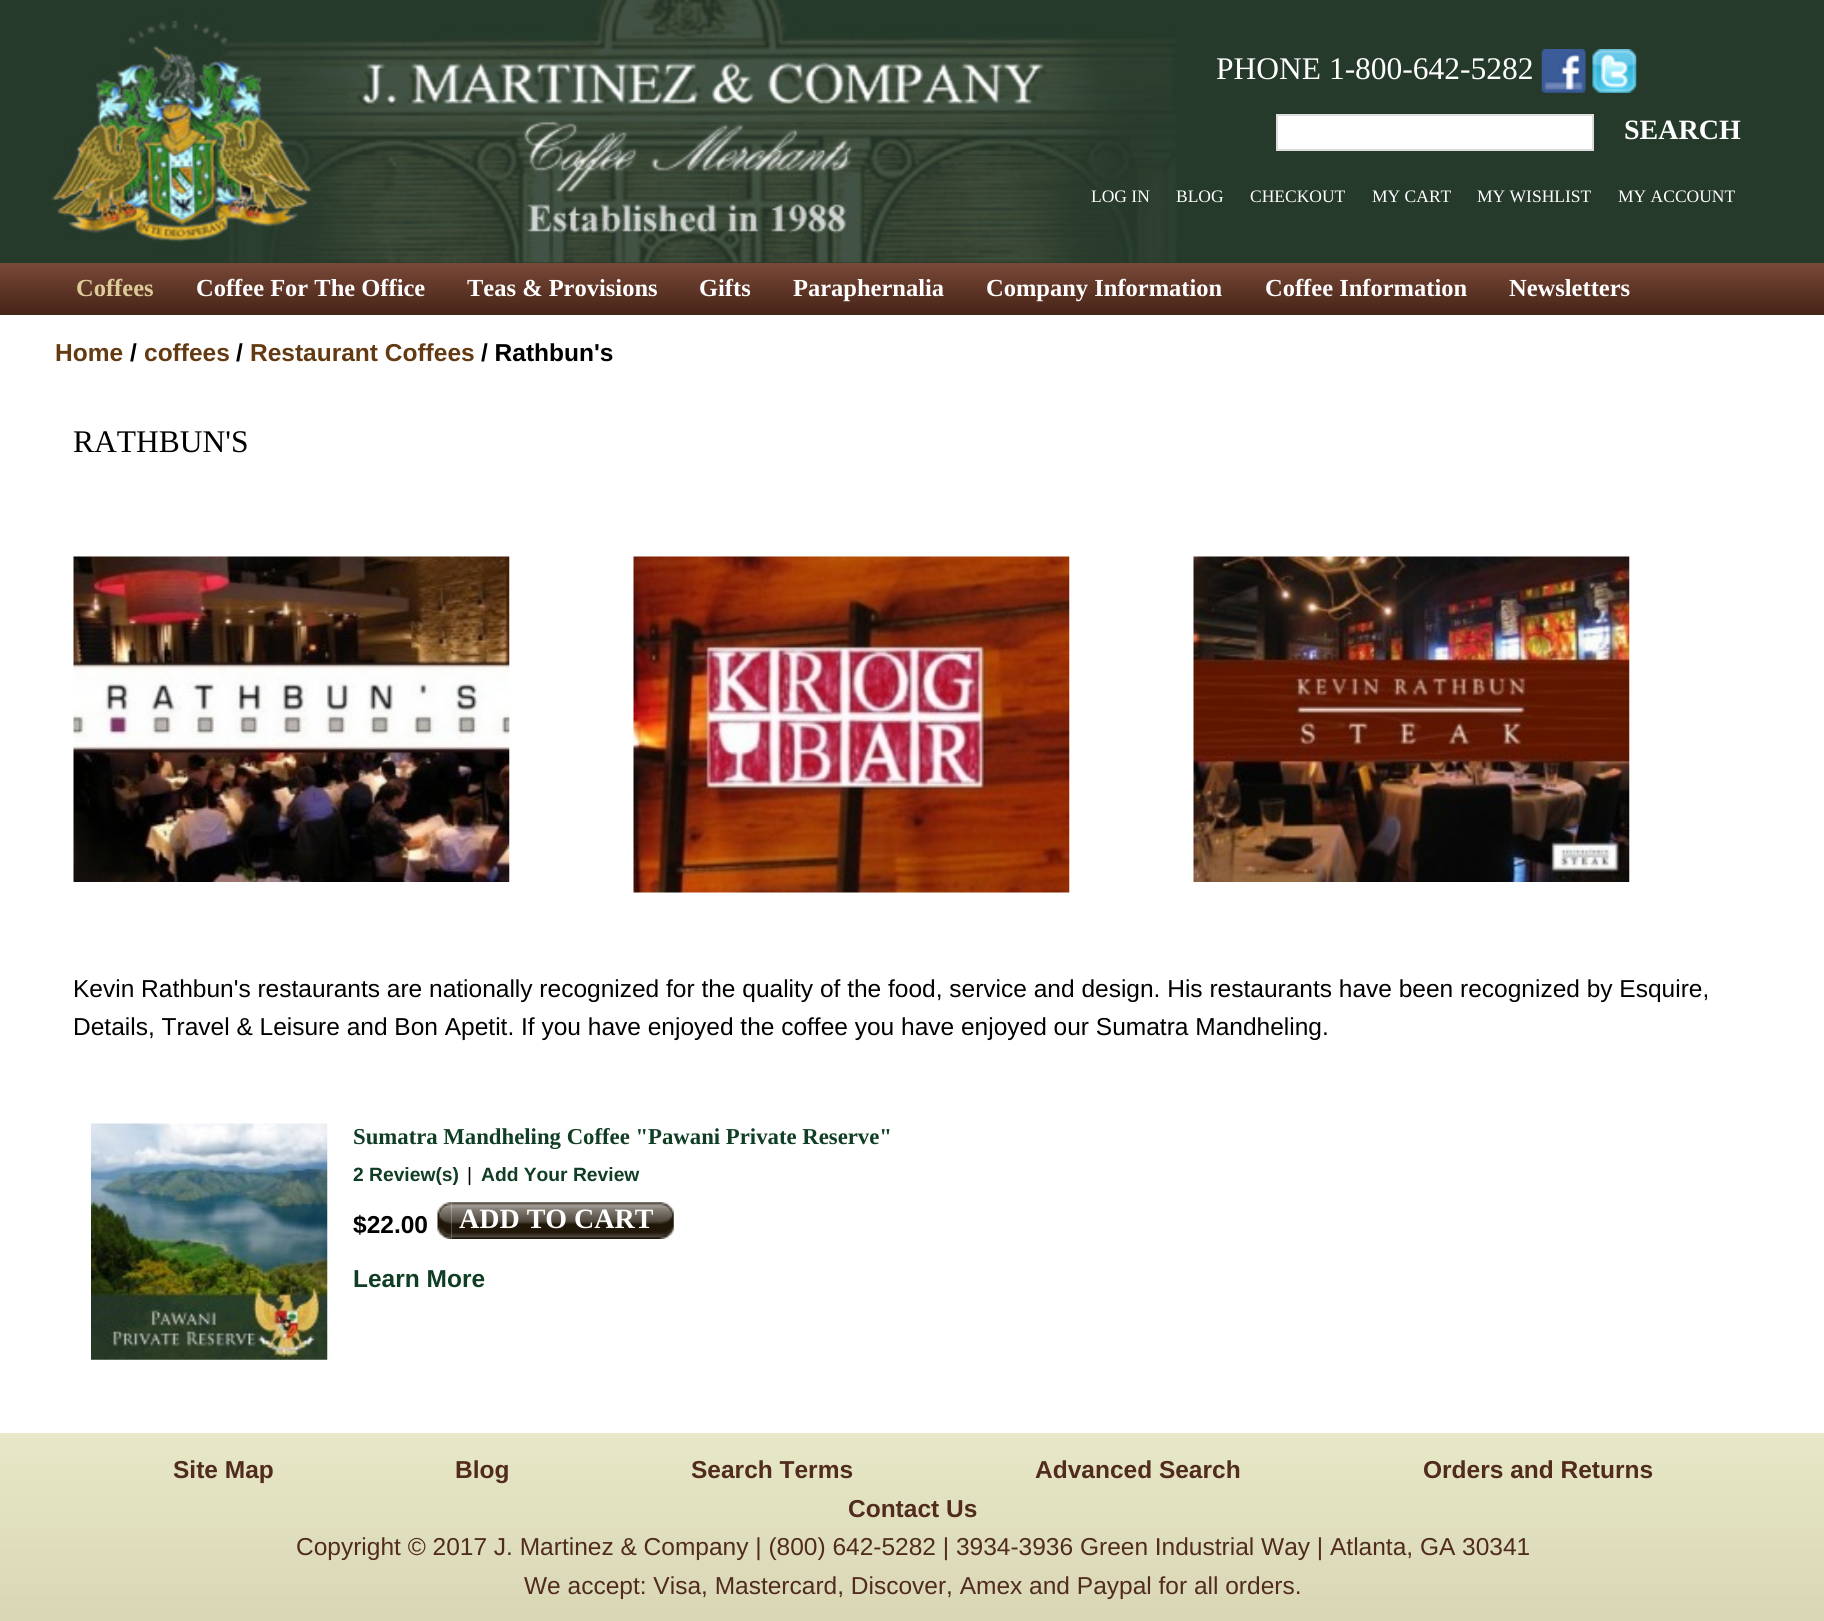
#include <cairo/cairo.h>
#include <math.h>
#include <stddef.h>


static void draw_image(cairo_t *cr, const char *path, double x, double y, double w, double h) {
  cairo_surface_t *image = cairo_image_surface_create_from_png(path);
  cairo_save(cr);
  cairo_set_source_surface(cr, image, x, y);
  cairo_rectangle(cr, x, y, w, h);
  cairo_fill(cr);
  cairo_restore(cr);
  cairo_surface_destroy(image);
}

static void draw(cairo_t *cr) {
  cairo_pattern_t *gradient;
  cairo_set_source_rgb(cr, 1, 1, 1);
  cairo_paint(cr);
  cairo_set_source_rgb(cr, 38 / 255.0, 58 / 255.0, 43 / 255.0);
  cairo_rectangle(cr, 0, 0, 1824, 263);
  cairo_fill(cr);
  draw_image(cr, "images/1.png", 51, 0, 1126, 263);
  draw_image(cr, "images/2.png", 1541, 49, 45, 44);
  draw_image(cr, "images/3.png", 1592, 49, 45, 44);
  cairo_set_source_rgb(cr, 1, 1, 1);
  cairo_rectangle(cr, 1277, 115, 316, 35);
  cairo_fill_preserve(cr);
  cairo_set_source_rgb(cr, 221 / 255.0, 221 / 255.0, 221 / 255.0);
  cairo_stroke(cr);
  gradient = cairo_pattern_create_linear(0, 263, 0, 315);
  cairo_pattern_add_color_stop_rgba(gradient, 0, 122 / 255.0, 73 / 255.0, 56 / 255.0, 1);
  cairo_pattern_add_color_stop_rgba(gradient, 1, 69 / 255.0, 35 / 255.0, 23 / 255.0, 1);
  cairo_set_source(cr, gradient);
  cairo_pattern_destroy(gradient);
  cairo_rectangle(cr, 0, 263, 1824, 52);
  cairo_fill(cr);
  draw_image(cr, "images/4.png", 73, 556, 437, 326);
  draw_image(cr, "images/5.png", 633, 556, 437, 337);
  draw_image(cr, "images/6.png", 1193, 556, 437, 326);
  draw_image(cr, "images/7.png", 91, 1123, 237, 237);
  draw_image(cr, "images/8.png", 437, 1202, 15, 37);
  draw_image(cr, "images/9.png", 451, 1202, 223, 37);
  gradient = cairo_pattern_create_linear(0, 1433, 0, 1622);
  cairo_pattern_add_color_stop_rgba(gradient, 0, 231 / 255.0, 232 / 255.0, 199 / 255.0, 1);
  cairo_pattern_add_color_stop_rgba(gradient, 1, 217 / 255.0, 214 / 255.0, 180 / 255.0, 1);
  cairo_set_source(cr, gradient);
  cairo_pattern_destroy(gradient);
  cairo_rectangle(cr, 0, 1433, 1824, 188);
  cairo_fill(cr);
  cairo_select_font_face(cr, "Liberation Serif", CAIRO_FONT_SLANT_NORMAL, CAIRO_FONT_WEIGHT_NORMAL);
  cairo_set_font_size(cr, 31.5);
  cairo_set_source_rgb(cr, 1, 1, 1);
  cairo_move_to(cr, 1216, 79);
  cairo_show_text(cr, "PHONE 1-800-642-5282");
  cairo_select_font_face(cr, "Liberation Serif", CAIRO_FONT_SLANT_NORMAL, CAIRO_FONT_WEIGHT_BOLD);
  cairo_set_font_size(cr, 28);
  cairo_move_to(cr, 1624, 139);
  cairo_show_text(cr, "SEARCH");
  cairo_select_font_face(cr, "Liberation Serif", CAIRO_FONT_SLANT_NORMAL, CAIRO_FONT_WEIGHT_NORMAL);
  cairo_set_font_size(cr, 17.5);
  cairo_move_to(cr, 1091, 202);
  cairo_show_text(cr, "LOG IN");
  cairo_move_to(cr, 1176, 202);
  cairo_show_text(cr, "BLOG");
  cairo_move_to(cr, 1250, 202);
  cairo_show_text(cr, "CHECKOUT");
  cairo_move_to(cr, 1372, 202);
  cairo_show_text(cr, "MY CART");
  cairo_move_to(cr, 1477, 202);
  cairo_show_text(cr, "MY WISHLIST");
  cairo_move_to(cr, 1618, 202);
  cairo_show_text(cr, "MY ACCOUNT");
  cairo_select_font_face(cr, "Liberation Serif", CAIRO_FONT_SLANT_NORMAL, CAIRO_FONT_WEIGHT_BOLD);
  cairo_set_font_size(cr, 24.5);
  cairo_set_source_rgb(cr, 221 / 255.0, 204 / 255.0, 152 / 255.0);
  cairo_move_to(cr, 76, 296);
  cairo_show_text(cr, "Coffees");
  cairo_set_source_rgb(cr, 1, 1, 1);
  cairo_move_to(cr, 196, 296);
  cairo_show_text(cr, "Coffee For The Office");
  cairo_move_to(cr, 467, 296);
  cairo_show_text(cr, "Teas & Provisions");
  cairo_move_to(cr, 699, 296);
  cairo_show_text(cr, "Gifts");
  cairo_move_to(cr, 793, 296);
  cairo_show_text(cr, "Paraphernalia");
  cairo_move_to(cr, 986, 296);
  cairo_show_text(cr, "Company Information");
  cairo_move_to(cr, 1265, 296);
  cairo_show_text(cr, "Coffee Information");
  cairo_move_to(cr, 1509, 296);
  cairo_show_text(cr, "Newsletters");
  cairo_select_font_face(cr, "Liberation Sans", CAIRO_FONT_SLANT_NORMAL, CAIRO_FONT_WEIGHT_BOLD);
  cairo_set_source_rgb(cr, 99 / 255.0, 58 / 255.0, 17 / 255.0);
  cairo_move_to(cr, 55, 361);
  cairo_show_text(cr, "Home");
  cairo_set_source_rgb(cr, 0, 0, 0);
  cairo_move_to(cr, 130, 361);
  cairo_show_text(cr, "/");
  cairo_set_source_rgb(cr, 99 / 255.0, 58 / 255.0, 17 / 255.0);
  cairo_move_to(cr, 144, 361);
  cairo_show_text(cr, "coffees");
  cairo_set_source_rgb(cr, 0, 0, 0);
  cairo_move_to(cr, 236, 361);
  cairo_show_text(cr, "/");
  cairo_set_source_rgb(cr, 99 / 255.0, 58 / 255.0, 17 / 255.0);
  cairo_move_to(cr, 250, 361);
  cairo_show_text(cr, "Restaurant Coffees");
  cairo_set_source_rgb(cr, 0, 0, 0);
  cairo_move_to(cr, 481, 361);
  cairo_show_text(cr, "/ Rathbun's");
  cairo_select_font_face(cr, "Liberation Serif", CAIRO_FONT_SLANT_NORMAL, CAIRO_FONT_WEIGHT_NORMAL);
  cairo_set_font_size(cr, 31.5);
  cairo_move_to(cr, 73, 452);
  cairo_show_text(cr, "RATHBUN'S");
  cairo_select_font_face(cr, "Liberation Sans", CAIRO_FONT_SLANT_NORMAL, CAIRO_FONT_WEIGHT_NORMAL);
  cairo_set_font_size(cr, 24.5);
  cairo_move_to(cr, 73, 997);
  cairo_show_text(cr, "Kevin Rathbun's restaurants are nationally recognized for the quality of the food, service and design. His restaurants have been recognized by Esquire,");
  cairo_move_to(cr, 73, 1035);
  cairo_show_text(cr, "Details, Travel & Leisure and Bon Apetit. If you have enjoyed the coffee you have enjoyed our Sumatra Mandheling.");
  cairo_select_font_face(cr, "Liberation Serif", CAIRO_FONT_SLANT_NORMAL, CAIRO_FONT_WEIGHT_BOLD);
  cairo_set_font_size(cr, 22.75);
  cairo_set_source_rgb(cr, 16 / 255.0, 62 / 255.0, 36 / 255.0);
  cairo_move_to(cr, 353, 1144);
  cairo_show_text(cr, "Sumatra Mandheling Coffee \"Pawani Private Reserve\"");
  cairo_select_font_face(cr, "Liberation Sans", CAIRO_FONT_SLANT_NORMAL, CAIRO_FONT_WEIGHT_BOLD);
  cairo_set_font_size(cr, 19.25);
  cairo_move_to(cr, 353, 1181);
  cairo_show_text(cr, "2 Review(s)");
  cairo_select_font_face(cr, "Liberation Sans", CAIRO_FONT_SLANT_NORMAL, CAIRO_FONT_WEIGHT_NORMAL);
  cairo_set_source_rgb(cr, 0, 0, 0);
  cairo_move_to(cr, 467, 1181);
  cairo_show_text(cr, "|");
  cairo_select_font_face(cr, "Liberation Sans", CAIRO_FONT_SLANT_NORMAL, CAIRO_FONT_WEIGHT_BOLD);
  cairo_set_source_rgb(cr, 16 / 255.0, 62 / 255.0, 36 / 255.0);
  cairo_move_to(cr, 481, 1181);
  cairo_show_text(cr, "Add Your Review");
  cairo_set_font_size(cr, 24.5);
  cairo_set_source_rgb(cr, 0, 0, 0);
  cairo_move_to(cr, 353, 1233);
  cairo_show_text(cr, "$22.00");
  cairo_select_font_face(cr, "Liberation Serif", CAIRO_FONT_SLANT_NORMAL, CAIRO_FONT_WEIGHT_BOLD);
  cairo_set_font_size(cr, 28);
  cairo_set_source_rgb(cr, 1, 1, 1);
  cairo_move_to(cr, 459, 1228);
  cairo_show_text(cr, "ADD TO CART");
  cairo_select_font_face(cr, "Liberation Sans", CAIRO_FONT_SLANT_NORMAL, CAIRO_FONT_WEIGHT_BOLD);
  cairo_set_font_size(cr, 24.5);
  cairo_set_source_rgb(cr, 16 / 255.0, 62 / 255.0, 36 / 255.0);
  cairo_move_to(cr, 353, 1287);
  cairo_show_text(cr, "Learn More");
  cairo_set_source_rgb(cr, 80 / 255.0, 43 / 255.0, 30 / 255.0);
  cairo_move_to(cr, 173, 1478);
  cairo_show_text(cr, "Site Map");
  cairo_move_to(cr, 455, 1478);
  cairo_show_text(cr, "Blog");
  cairo_move_to(cr, 691, 1478);
  cairo_show_text(cr, "Search Terms");
  cairo_move_to(cr, 1035, 1478);
  cairo_show_text(cr, "Advanced Search");
  cairo_move_to(cr, 1423, 1478);
  cairo_show_text(cr, "Orders and Returns");
  cairo_move_to(cr, 848, 1517);
  cairo_show_text(cr, "Contact Us");
  cairo_select_font_face(cr, "Liberation Sans", CAIRO_FONT_SLANT_NORMAL, CAIRO_FONT_WEIGHT_NORMAL);
  cairo_move_to(cr, 296, 1555);
  cairo_show_text(cr, "Copyright © 2017 J. Martinez & Company | (800) 642-5282 | 3934-3936 Green Industrial Way | Atlanta, GA 30341");
  cairo_move_to(cr, 524, 1594);
  cairo_show_text(cr, "We accept: Visa, Mastercard, Discover, Amex and Paypal for all orders.");
}

int main(void) {
  cairo_surface_t *surface = cairo_image_surface_create(CAIRO_FORMAT_RGB24, 1824, 1621);
  cairo_t *cr = cairo_create(surface);
  cairo_font_options_t *options = cairo_font_options_create();
  cairo_font_options_set_hint_metrics(options, CAIRO_HINT_METRICS_OFF);
  cairo_font_options_set_hint_style(options, CAIRO_HINT_STYLE_NONE);
  cairo_set_font_options(cr, options);
  cairo_set_miter_limit(cr, 4);
  draw(cr);
  cairo_surface_write_to_png(surface, "out.png");
  cairo_font_options_destroy(options);
  cairo_destroy(cr);
  cairo_surface_destroy(surface);
  return 0;
}
